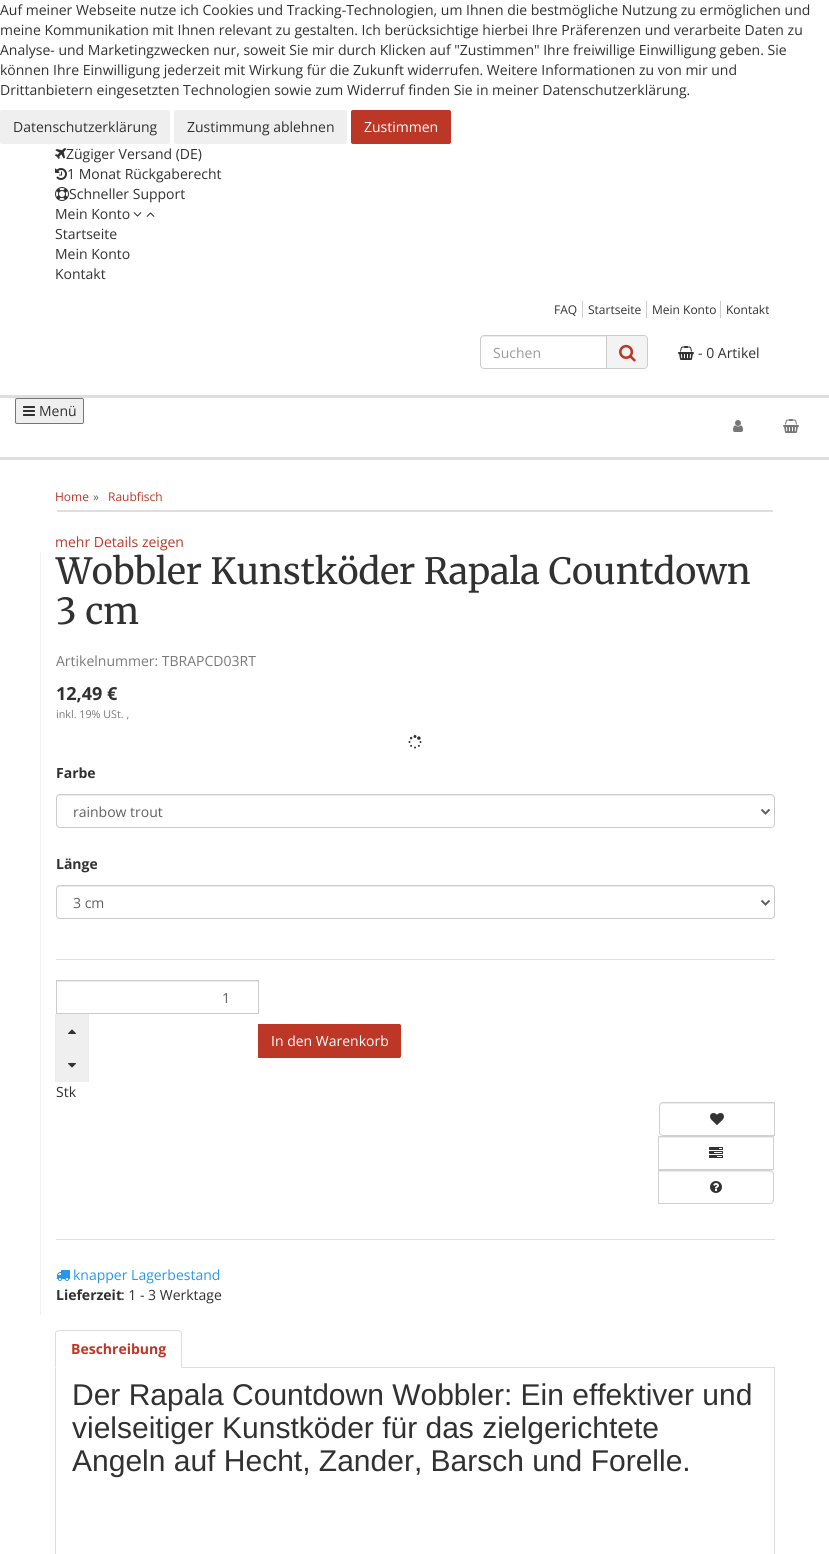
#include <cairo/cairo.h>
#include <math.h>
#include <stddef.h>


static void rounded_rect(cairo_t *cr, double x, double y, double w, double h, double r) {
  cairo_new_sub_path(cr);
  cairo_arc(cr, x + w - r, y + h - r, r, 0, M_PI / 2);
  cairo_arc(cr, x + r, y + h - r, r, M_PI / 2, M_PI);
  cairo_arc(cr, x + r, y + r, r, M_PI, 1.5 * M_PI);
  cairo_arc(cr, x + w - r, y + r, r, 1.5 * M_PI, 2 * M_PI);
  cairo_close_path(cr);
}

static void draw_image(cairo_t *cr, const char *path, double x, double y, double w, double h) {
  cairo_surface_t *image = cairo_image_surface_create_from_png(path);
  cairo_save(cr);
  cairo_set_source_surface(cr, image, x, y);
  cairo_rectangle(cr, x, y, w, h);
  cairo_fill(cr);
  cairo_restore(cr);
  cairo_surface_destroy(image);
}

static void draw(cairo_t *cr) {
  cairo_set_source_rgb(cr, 1, 1, 1);
  cairo_paint(cr);
  cairo_set_source_rgb(cr, 239 / 255.0, 239 / 255.0, 239 / 255.0);
  rounded_rect(cr, 0, 110, 170, 34, 2);
  cairo_fill(cr);
  rounded_rect(cr, 174, 110, 173, 34, 2);
  cairo_fill(cr);
  cairo_set_source_rgb(cr, 188 / 255.0, 55 / 255.0, 38 / 255.0);
  rounded_rect(cr, 351.5, 110.5, 99, 33, 1.5);
  cairo_fill_preserve(cr);
  cairo_set_line_width(cr, 1);
  cairo_stroke(cr);
  draw_image(cr, "images/1.png", 55, 148, 11, 11);
  draw_image(cr, "images/2.png", 55, 168, 12, 12);
  draw_image(cr, "images/3.png", 55, 187, 14, 14);
  draw_image(cr, "images/4.png", 133, 212, 9, 5);
  draw_image(cr, "images/5.png", 146, 212, 9, 5);
  cairo_set_source_rgb(cr, 204 / 255.0, 204 / 255.0, 204 / 255.0);
  cairo_rectangle(cr, 582, 301, 1, 17);
  cairo_fill(cr);
  cairo_rectangle(cr, 646, 301, 1, 17);
  cairo_fill(cr);
  cairo_rectangle(cr, 720, 301, 1, 17);
  cairo_fill(cr);
  cairo_set_source_rgb(cr, 236 / 255.0, 236 / 255.0, 236 / 255.0);
  cairo_new_path(cr);
  cairo_move_to(cr, 484, 337);
  cairo_line_to(cr, 606, 337);
  cairo_line_to(cr, 606, 336);
  cairo_line_to(cr, 484, 336);
  cairo_curve_to(cr, 482, 336, 481, 338, 481, 340);
  cairo_curve_to(cr, 481, 338, 482, 337, 484, 337);
  cairo_close_path(cr);
  cairo_fill(cr);
  cairo_new_path(cr);
  cairo_move_to(cr, 484, 335.5);
  cairo_line_to(cr, 606.5, 335.5);
  cairo_line_to(cr, 606.5, 368.5);
  cairo_line_to(cr, 484, 368.5);
  cairo_curve_to(cr, 482, 368.5, 480.5, 367, 480.5, 365);
  cairo_line_to(cr, 480.5, 339);
  cairo_curve_to(cr, 480.5, 337, 482, 335.5, 484, 335.5);
  cairo_close_path(cr);
  cairo_set_source_rgb(cr, 204 / 255.0, 204 / 255.0, 204 / 255.0);
  cairo_stroke(cr);
  cairo_set_source_rgb(cr, 243 / 255.0, 243 / 255.0, 243 / 255.0);
  cairo_new_path(cr);
  cairo_move_to(cr, 607, 335);
  cairo_line_to(cr, 644, 335);
  cairo_curve_to(cr, 646, 335, 648, 337, 648, 339);
  cairo_line_to(cr, 648, 365);
  cairo_curve_to(cr, 648, 367, 646, 369, 644, 369);
  cairo_line_to(cr, 607, 369);
  cairo_close_path(cr);
  cairo_fill(cr);
  cairo_set_source_rgb(cr, 204 / 255.0, 204 / 255.0, 204 / 255.0);
  cairo_set_fill_rule(cr, CAIRO_FILL_RULE_EVEN_ODD);
  cairo_new_path(cr);
  cairo_move_to(cr, 607, 335);
  cairo_line_to(cr, 644, 335);
  cairo_curve_to(cr, 646, 335, 648, 337, 648, 339);
  cairo_line_to(cr, 648, 365);
  cairo_curve_to(cr, 648, 367, 646, 369, 644, 369);
  cairo_line_to(cr, 607, 369);
  cairo_close_path(cr);
  cairo_move_to(cr, 607, 336);
  cairo_line_to(cr, 644, 336);
  cairo_curve_to(cr, 646, 336, 647, 337, 647, 339);
  cairo_line_to(cr, 647, 365);
  cairo_curve_to(cr, 647, 367, 646, 368, 644, 368);
  cairo_line_to(cr, 607, 368);
  cairo_close_path(cr);
  cairo_fill(cr);
  draw_image(cr, "images/6.png", 619, 344, 17, 18);
  draw_image(cr, "images/7.png", 678, 346, 16, 14);
  cairo_set_source_rgb(cr, 223 / 255.0, 223 / 255.0, 223 / 255.0);
  cairo_rectangle(cr, 0, 395, 829, 3);
  cairo_fill(cr);
  cairo_rectangle(cr, 0, 457, 829, 3);
  cairo_fill(cr);
  cairo_set_source_rgb(cr, 239 / 255.0, 239 / 255.0, 239 / 255.0);
  rounded_rect(cr, 15.5, 398.5, 68, 25, 1.5);
  cairo_fill_preserve(cr);
  cairo_set_source_rgb(cr, 118 / 255.0, 118 / 255.0, 118 / 255.0);
  cairo_stroke(cr);
  draw_image(cr, "images/8.png", 23, 406, 12, 10);
  draw_image(cr, "images/9.png", 733, 420, 10, 12);
  draw_image(cr, "images/10.png", 783, 419, 16, 14);
  cairo_set_source_rgb(cr, 223 / 255.0, 223 / 255.0, 223 / 255.0);
  cairo_rectangle(cr, 57, 510, 716, 2);
  cairo_fill(cr);
  cairo_set_source_rgb(cr, 243 / 255.0, 243 / 255.0, 243 / 255.0);
  cairo_rectangle(cr, 40, 552, 1, 763);
  cairo_fill(cr);
  draw_image(cr, "images/11.png", 408, 735, 14, 14);
  cairo_set_source_rgb(cr, 236 / 255.0, 236 / 255.0, 236 / 255.0);
  cairo_set_fill_rule(cr, CAIRO_FILL_RULE_WINDING);
  cairo_new_path(cr);
  cairo_move_to(cr, 60, 796);
  cairo_line_to(cr, 771, 796);
  cairo_curve_to(cr, 773, 796, 774, 797, 774, 799);
  cairo_curve_to(cr, 774, 797, 773, 795, 771, 795);
  cairo_line_to(cr, 60, 795);
  cairo_curve_to(cr, 58, 795, 57, 797, 57, 799);
  cairo_curve_to(cr, 57, 797, 58, 796, 60, 796);
  cairo_close_path(cr);
  cairo_fill(cr);
  rounded_rect(cr, 56.5, 794.5, 718, 33, 3.5);
  cairo_set_source_rgb(cr, 204 / 255.0, 204 / 255.0, 204 / 255.0);
  cairo_stroke(cr);
  cairo_new_path(cr);
  cairo_move_to(cr, 761.5, 809.5);
  cairo_line_to(cr, 765.5, 813.5);
  cairo_line_to(cr, 769.5, 809.5);
  cairo_set_source_rgb(cr, 96 / 255.0, 96 / 255.0, 96 / 255.0);
  cairo_set_line_width(cr, 2);
  cairo_stroke(cr);
  cairo_set_source_rgb(cr, 236 / 255.0, 236 / 255.0, 236 / 255.0);
  cairo_new_path(cr);
  cairo_move_to(cr, 60, 887);
  cairo_line_to(cr, 771, 887);
  cairo_curve_to(cr, 773, 887, 774, 888, 774, 890);
  cairo_curve_to(cr, 774, 888, 773, 886, 771, 886);
  cairo_line_to(cr, 60, 886);
  cairo_curve_to(cr, 58, 886, 57, 888, 57, 890);
  cairo_curve_to(cr, 57, 888, 58, 887, 60, 887);
  cairo_close_path(cr);
  cairo_fill(cr);
  rounded_rect(cr, 56.5, 885.5, 718, 33, 3.5);
  cairo_set_source_rgb(cr, 204 / 255.0, 204 / 255.0, 204 / 255.0);
  cairo_set_line_width(cr, 1);
  cairo_stroke(cr);
  cairo_new_path(cr);
  cairo_move_to(cr, 761.5, 900.5);
  cairo_line_to(cr, 765.5, 904.5);
  cairo_line_to(cr, 769.5, 900.5);
  cairo_set_source_rgb(cr, 96 / 255.0, 96 / 255.0, 96 / 255.0);
  cairo_set_line_width(cr, 2);
  cairo_stroke(cr);
  cairo_set_source_rgb(cr, 223 / 255.0, 223 / 255.0, 223 / 255.0);
  cairo_rectangle(cr, 56, 959, 719, 1);
  cairo_fill(cr);
  cairo_set_source_rgb(cr, 236 / 255.0, 236 / 255.0, 236 / 255.0);
  cairo_rectangle(cr, 57, 981, 201, 1);
  cairo_fill(cr);
  cairo_rectangle(cr, 56.5, 980.5, 202, 33);
  cairo_set_source_rgb(cr, 204 / 255.0, 204 / 255.0, 204 / 255.0);
  cairo_set_line_width(cr, 1);
  cairo_stroke(cr);
  cairo_set_source_rgb(cr, 239 / 255.0, 239 / 255.0, 239 / 255.0);
  cairo_rectangle(cr, 55, 1014, 34, 68);
  cairo_fill(cr);
  draw_image(cr, "images/12.png", 68, 1029, 8, 5);
  draw_image(cr, "images/13.png", 68, 1063, 8, 5);
  cairo_set_source_rgb(cr, 188 / 255.0, 55 / 255.0, 38 / 255.0);
  cairo_new_path(cr);
  cairo_move_to(cr, 258.5, 1024.5);
  cairo_line_to(cr, 399, 1024.5);
  cairo_curve_to(cr, 400, 1024.5, 400.5, 1025, 400.5, 1026);
  cairo_line_to(cr, 400.5, 1056);
  cairo_curve_to(cr, 400.5, 1057, 400, 1057.5, 399, 1057.5);
  cairo_line_to(cr, 258.5, 1057.5);
  cairo_close_path(cr);
  cairo_fill_preserve(cr);
  cairo_stroke(cr);
  cairo_set_source_rgb(cr, 236 / 255.0, 236 / 255.0, 236 / 255.0);
  cairo_new_path(cr);
  cairo_move_to(cr, 663, 1104);
  cairo_line_to(cr, 774, 1104);
  cairo_line_to(cr, 774, 1103);
  cairo_line_to(cr, 663, 1103);
  cairo_curve_to(cr, 661, 1103, 660, 1104, 660, 1106);
  cairo_line_to(cr, 660, 1107);
  cairo_curve_to(cr, 660, 1105, 661, 1104, 663, 1104);
  cairo_close_path(cr);
  cairo_fill(cr);
  cairo_new_path(cr);
  cairo_move_to(cr, 663, 1102.5);
  cairo_line_to(cr, 774.5, 1102.5);
  cairo_line_to(cr, 774.5, 1135.5);
  cairo_line_to(cr, 663, 1135.5);
  cairo_curve_to(cr, 661, 1135.5, 659.5, 1134, 659.5, 1132);
  cairo_line_to(cr, 659.5, 1106);
  cairo_curve_to(cr, 659.5, 1104, 661, 1102.5, 663, 1102.5);
  cairo_close_path(cr);
  cairo_set_source_rgb(cr, 209 / 255.0, 209 / 255.0, 209 / 255.0);
  cairo_stroke(cr);
  draw_image(cr, "images/14.png", 710, 1113, 14, 12);
  cairo_set_source_rgb(cr, 236 / 255.0, 236 / 255.0, 236 / 255.0);
  cairo_rectangle(cr, 659, 1137, 114, 1);
  cairo_fill(cr);
  cairo_rectangle(cr, 658.5, 1136.5, 115, 33);
  cairo_set_source_rgb(cr, 209 / 255.0, 209 / 255.0, 209 / 255.0);
  cairo_stroke(cr);
  draw_image(cr, "images/15.png", 709, 1147, 14, 11);
  cairo_set_source_rgb(cr, 236 / 255.0, 236 / 255.0, 236 / 255.0);
  cairo_new_path(cr);
  cairo_move_to(cr, 659, 1172);
  cairo_line_to(cr, 770, 1172);
  cairo_curve_to(cr, 772, 1172, 773, 1173, 773, 1175);
  cairo_line_to(cr, 773, 1174);
  cairo_curve_to(cr, 773, 1172, 772, 1171, 770, 1171);
  cairo_line_to(cr, 659, 1171);
  cairo_close_path(cr);
  cairo_fill(cr);
  cairo_new_path(cr);
  cairo_move_to(cr, 658.5, 1170.5);
  cairo_line_to(cr, 770, 1170.5);
  cairo_curve_to(cr, 772, 1170.5, 773.5, 1172, 773.5, 1174);
  cairo_line_to(cr, 773.5, 1200);
  cairo_curve_to(cr, 773.5, 1202, 772, 1203.5, 770, 1203.5);
  cairo_line_to(cr, 658.5, 1203.5);
  cairo_close_path(cr);
  cairo_set_source_rgb(cr, 209 / 255.0, 209 / 255.0, 209 / 255.0);
  cairo_stroke(cr);
  draw_image(cr, "images/16.png", 710, 1181, 12, 12);
  cairo_set_source_rgb(cr, 223 / 255.0, 223 / 255.0, 223 / 255.0);
  cairo_rectangle(cr, 56, 1239, 719, 1);
  cairo_fill(cr);
  draw_image(cr, "images/17.png", 56, 1270, 14, 11);
  cairo_set_source_rgb(cr, 221 / 255.0, 221 / 255.0, 221 / 255.0);
  cairo_rectangle(cr, 182, 1367, 593, 1);
  cairo_fill(cr);
  cairo_new_path(cr);
  cairo_move_to(cr, 59, 1330);
  cairo_line_to(cr, 56, 1331);
  cairo_line_to(cr, 57, 1332);
  cairo_line_to(cr, 59, 1331);
  cairo_line_to(cr, 178, 1331);
  cairo_line_to(cr, 180, 1332);
  cairo_line_to(cr, 181, 1331);
  cairo_line_to(cr, 178, 1330);
  cairo_close_path(cr);
  cairo_fill(cr);
  cairo_new_path(cr);
  cairo_move_to(cr, 182, 1368);
  cairo_line_to(cr, 182, 1334);
  cairo_curve_to(cr, 182, 1333, 181.5, 1332, 181, 1331);
  cairo_line_to(cr, 180, 1332);
  cairo_curve_to(cr, 181, 1332, 181, 1333, 181, 1334);
  cairo_line_to(cr, 181, 1367);
  cairo_close_path(cr);
  cairo_fill(cr);
  cairo_new_path(cr);
  cairo_move_to(cr, 55, 1368);
  cairo_line_to(cr, 56, 1367);
  cairo_line_to(cr, 56, 1334);
  cairo_curve_to(cr, 56, 1333, 56, 1332, 57, 1332);
  cairo_line_to(cr, 56, 1331);
  cairo_curve_to(cr, 55.5, 1332, 55, 1333, 55, 1334);
  cairo_close_path(cr);
  cairo_fill(cr);
  cairo_set_fill_rule(cr, CAIRO_FILL_RULE_EVEN_ODD);
  cairo_new_path(cr);
  cairo_move_to(cr, 55, 1368);
  cairo_line_to(cr, 775, 1368);
  cairo_line_to(cr, 775, 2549);
  cairo_curve_to(cr, 775, 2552, 773, 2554, 770, 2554);
  cairo_line_to(cr, 60, 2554);
  cairo_curve_to(cr, 57, 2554, 55, 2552, 55, 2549);
  cairo_close_path(cr);
  cairo_move_to(cr, 56, 1368);
  cairo_line_to(cr, 774, 1368);
  cairo_line_to(cr, 774, 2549);
  cairo_curve_to(cr, 774, 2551, 772, 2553, 770, 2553);
  cairo_line_to(cr, 60, 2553);
  cairo_curve_to(cr, 58, 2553, 56, 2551, 56, 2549);
  cairo_close_path(cr);
  cairo_fill(cr);
  cairo_select_font_face(cr, "Open Sans", CAIRO_FONT_SLANT_NORMAL, CAIRO_FONT_WEIGHT_NORMAL);
  cairo_set_font_size(cr, 14);
  cairo_set_source_rgb(cr, 49 / 255.0, 49 / 255.0, 49 / 255.0);
  cairo_move_to(cr, 0, 15);
  cairo_show_text(cr, "Auf meiner Webseite nutze ich Cookies und Tracking-Technologien, um Ihnen die bestmögliche Nutzung zu ermöglichen und");
  cairo_move_to(cr, 0, 35);
  cairo_show_text(cr, "meine Kommunikation mit Ihnen relevant zu gestalten. Ich berücksichtige hierbei Ihre Präferenzen und verarbeite Daten zu");
  cairo_move_to(cr, 0, 55);
  cairo_show_text(cr, "Analyse- und Marketingzwecken nur, soweit Sie mir durch Klicken auf \"Zustimmen\" Ihre freiwillige Einwilligung geben. Sie");
  cairo_move_to(cr, 0, 75);
  cairo_show_text(cr, "können Ihre Einwilligung jederzeit mit Wirkung für die Zukunft widerrufen. Weitere Informationen zu von mir und");
  cairo_move_to(cr, 0, 95);
  cairo_show_text(cr, "Drittanbietern eingesetzten Technologien sowie zum Widerruf finden Sie in meiner Datenschutzerklärung.");
  cairo_move_to(cr, 13, 132);
  cairo_show_text(cr, "Datenschutzerklärung");
  cairo_move_to(cr, 187, 132);
  cairo_show_text(cr, "Zustimmung ablehnen");
  cairo_set_source_rgb(cr, 1, 1, 1);
  cairo_move_to(cr, 364, 132);
  cairo_show_text(cr, "Zustimmen");
  cairo_set_source_rgb(cr, 49 / 255.0, 49 / 255.0, 49 / 255.0);
  cairo_move_to(cr, 66, 159);
  cairo_show_text(cr, "Zügiger Versand (DE)");
  cairo_move_to(cr, 67, 179);
  cairo_show_text(cr, "1 Monat Rückgaberecht");
  cairo_move_to(cr, 69, 199);
  cairo_show_text(cr, "Schneller Support");
  cairo_move_to(cr, 55, 219);
  cairo_show_text(cr, "Mein Konto");
  cairo_move_to(cr, 55, 239);
  cairo_show_text(cr, "Startseite");
  cairo_move_to(cr, 55, 259);
  cairo_show_text(cr, "Mein Konto");
  cairo_move_to(cr, 55, 279);
  cairo_show_text(cr, "Kontakt");
  cairo_set_font_size(cr, 12);
  cairo_move_to(cr, 554, 314);
  cairo_show_text(cr, "FAQ");
  cairo_move_to(cr, 588, 314);
  cairo_show_text(cr, "Startseite");
  cairo_move_to(cr, 652, 314);
  cairo_show_text(cr, "Mein Konto");
  cairo_move_to(cr, 726, 314);
  cairo_show_text(cr, "Kontakt");
  cairo_set_font_size(cr, 14);
  cairo_set_source_rgb(cr, 153 / 255.0, 153 / 255.0, 153 / 255.0);
  cairo_move_to(cr, 493, 358);
  cairo_show_text(cr, "Suchen");
  cairo_set_source_rgb(cr, 49 / 255.0, 49 / 255.0, 49 / 255.0);
  cairo_move_to(cr, 698, 358);
  cairo_show_text(cr, "- 0 Artikel");
  cairo_move_to(cr, 39, 416);
  cairo_show_text(cr, "Menü");
  cairo_set_font_size(cr, 12);
  cairo_set_source_rgb(cr, 188 / 255.0, 55 / 255.0, 38 / 255.0);
  cairo_move_to(cr, 55, 501);
  cairo_show_text(cr, "Home");
  cairo_set_source_rgb(cr, 96 / 255.0, 96 / 255.0, 96 / 255.0);
  cairo_move_to(cr, 93, 501);
  cairo_show_text(cr, "»");
  cairo_set_source_rgb(cr, 188 / 255.0, 55 / 255.0, 38 / 255.0);
  cairo_move_to(cr, 108, 501);
  cairo_show_text(cr, "Raubfisch");
  cairo_set_font_size(cr, 14);
  cairo_move_to(cr, 55, 547);
  cairo_show_text(cr, "mehr Details zeigen");
  cairo_select_font_face(cr, "Merriweather", CAIRO_FONT_SLANT_NORMAL, CAIRO_FONT_WEIGHT_NORMAL);
  cairo_set_font_size(cr, 36);
  cairo_set_source_rgb(cr, 49 / 255.0, 49 / 255.0, 49 / 255.0);
  cairo_move_to(cr, 56, 584);
  cairo_show_text(cr, "Wobbler Kunstköder Rapala Countdown");
  cairo_move_to(cr, 56, 624);
  cairo_show_text(cr, "3 cm");
  cairo_select_font_face(cr, "Open Sans", CAIRO_FONT_SLANT_NORMAL, CAIRO_FONT_WEIGHT_NORMAL);
  cairo_set_font_size(cr, 14);
  cairo_set_source_rgb(cr, 121 / 255.0, 121 / 255.0, 121 / 255.0);
  cairo_move_to(cr, 56, 666);
  cairo_show_text(cr, "Artikelnummer: TBRAPCD03RT");
  cairo_select_font_face(cr, "Open Sans", CAIRO_FONT_SLANT_NORMAL, CAIRO_FONT_WEIGHT_BOLD);
  cairo_set_font_size(cr, 18);
  cairo_set_source_rgb(cr, 49 / 255.0, 49 / 255.0, 49 / 255.0);
  cairo_move_to(cr, 56, 700);
  cairo_show_text(cr, "12,49 €");
  cairo_select_font_face(cr, "Open Sans", CAIRO_FONT_SLANT_NORMAL, CAIRO_FONT_WEIGHT_NORMAL);
  cairo_set_font_size(cr, 10.75);
  cairo_set_source_rgb(cr, 121 / 255.0, 121 / 255.0, 121 / 255.0);
  cairo_move_to(cr, 56, 718);
  cairo_show_text(cr, "inkl. 19% USt. ,");
  cairo_select_font_face(cr, "Open Sans", CAIRO_FONT_SLANT_NORMAL, CAIRO_FONT_WEIGHT_BOLD);
  cairo_set_font_size(cr, 14);
  cairo_set_source_rgb(cr, 49 / 255.0, 49 / 255.0, 49 / 255.0);
  cairo_move_to(cr, 56, 778);
  cairo_show_text(cr, "Farbe");
  cairo_select_font_face(cr, "Open Sans", CAIRO_FONT_SLANT_NORMAL, CAIRO_FONT_WEIGHT_NORMAL);
  cairo_set_source_rgb(cr, 96 / 255.0, 96 / 255.0, 96 / 255.0);
  cairo_move_to(cr, 73, 817);
  cairo_show_text(cr, "rainbow trout");
  cairo_select_font_face(cr, "Open Sans", CAIRO_FONT_SLANT_NORMAL, CAIRO_FONT_WEIGHT_BOLD);
  cairo_set_source_rgb(cr, 49 / 255.0, 49 / 255.0, 49 / 255.0);
  cairo_move_to(cr, 56, 869);
  cairo_show_text(cr, "Länge");
  cairo_select_font_face(cr, "Open Sans", CAIRO_FONT_SLANT_NORMAL, CAIRO_FONT_WEIGHT_NORMAL);
  cairo_set_source_rgb(cr, 96 / 255.0, 96 / 255.0, 96 / 255.0);
  cairo_move_to(cr, 73, 908);
  cairo_show_text(cr, "3 cm");
  cairo_move_to(cr, 222, 1003);
  cairo_show_text(cr, "1");
  cairo_set_source_rgb(cr, 1, 1, 1);
  cairo_move_to(cr, 271, 1046);
  cairo_show_text(cr, "In den Warenkorb");
  cairo_set_source_rgb(cr, 49 / 255.0, 49 / 255.0, 49 / 255.0);
  cairo_move_to(cr, 56, 1097);
  cairo_show_text(cr, "Stk");
  cairo_set_source_rgb(cr, 40 / 255.0, 150 / 255.0, 236 / 255.0);
  cairo_move_to(cr, 73, 1280);
  cairo_show_text(cr, "knapper Lagerbestand");
  cairo_select_font_face(cr, "Open Sans", CAIRO_FONT_SLANT_NORMAL, CAIRO_FONT_WEIGHT_BOLD);
  cairo_set_source_rgb(cr, 49 / 255.0, 49 / 255.0, 49 / 255.0);
  cairo_move_to(cr, 56, 1300);
  cairo_show_text(cr, "Lieferzeit");
  cairo_select_font_face(cr, "Open Sans", CAIRO_FONT_SLANT_NORMAL, CAIRO_FONT_WEIGHT_NORMAL);
  cairo_move_to(cr, 121, 1300);
  cairo_show_text(cr, ": 1 - 3 Werktage");
  cairo_select_font_face(cr, "Open Sans", CAIRO_FONT_SLANT_NORMAL, CAIRO_FONT_WEIGHT_BOLD);
  cairo_set_source_rgb(cr, 188 / 255.0, 55 / 255.0, 38 / 255.0);
  cairo_move_to(cr, 71, 1354);
  cairo_show_text(cr, "Beschreibung");
  cairo_select_font_face(cr, "Liberation Sans", CAIRO_FONT_SLANT_NORMAL, CAIRO_FONT_WEIGHT_NORMAL);
  cairo_set_font_size(cr, 30);
  cairo_set_source_rgb(cr, 49 / 255.0, 49 / 255.0, 49 / 255.0);
  cairo_move_to(cr, 72, 1405);
  cairo_show_text(cr, "Der Rapala Countdown Wobbler: Ein effektiver und");
  cairo_move_to(cr, 72, 1438);
  cairo_show_text(cr, "vielseitiger Kunstköder für das zielgerichtete");
  cairo_move_to(cr, 72, 1471);
  cairo_show_text(cr, "Angeln auf Hecht, Zander, Barsch und Forelle.");
}

int main(void) {
  cairo_surface_t *surface = cairo_image_surface_create(CAIRO_FORMAT_RGB24, 829, 1554);
  cairo_t *cr = cairo_create(surface);
  cairo_font_options_t *options = cairo_font_options_create();
  cairo_font_options_set_hint_metrics(options, CAIRO_HINT_METRICS_OFF);
  cairo_font_options_set_hint_style(options, CAIRO_HINT_STYLE_NONE);
  cairo_set_font_options(cr, options);
  cairo_set_miter_limit(cr, 4);
  draw(cr);
  cairo_surface_write_to_png(surface, "out.png");
  cairo_font_options_destroy(options);
  cairo_destroy(cr);
  cairo_surface_destroy(surface);
  return 0;
}
